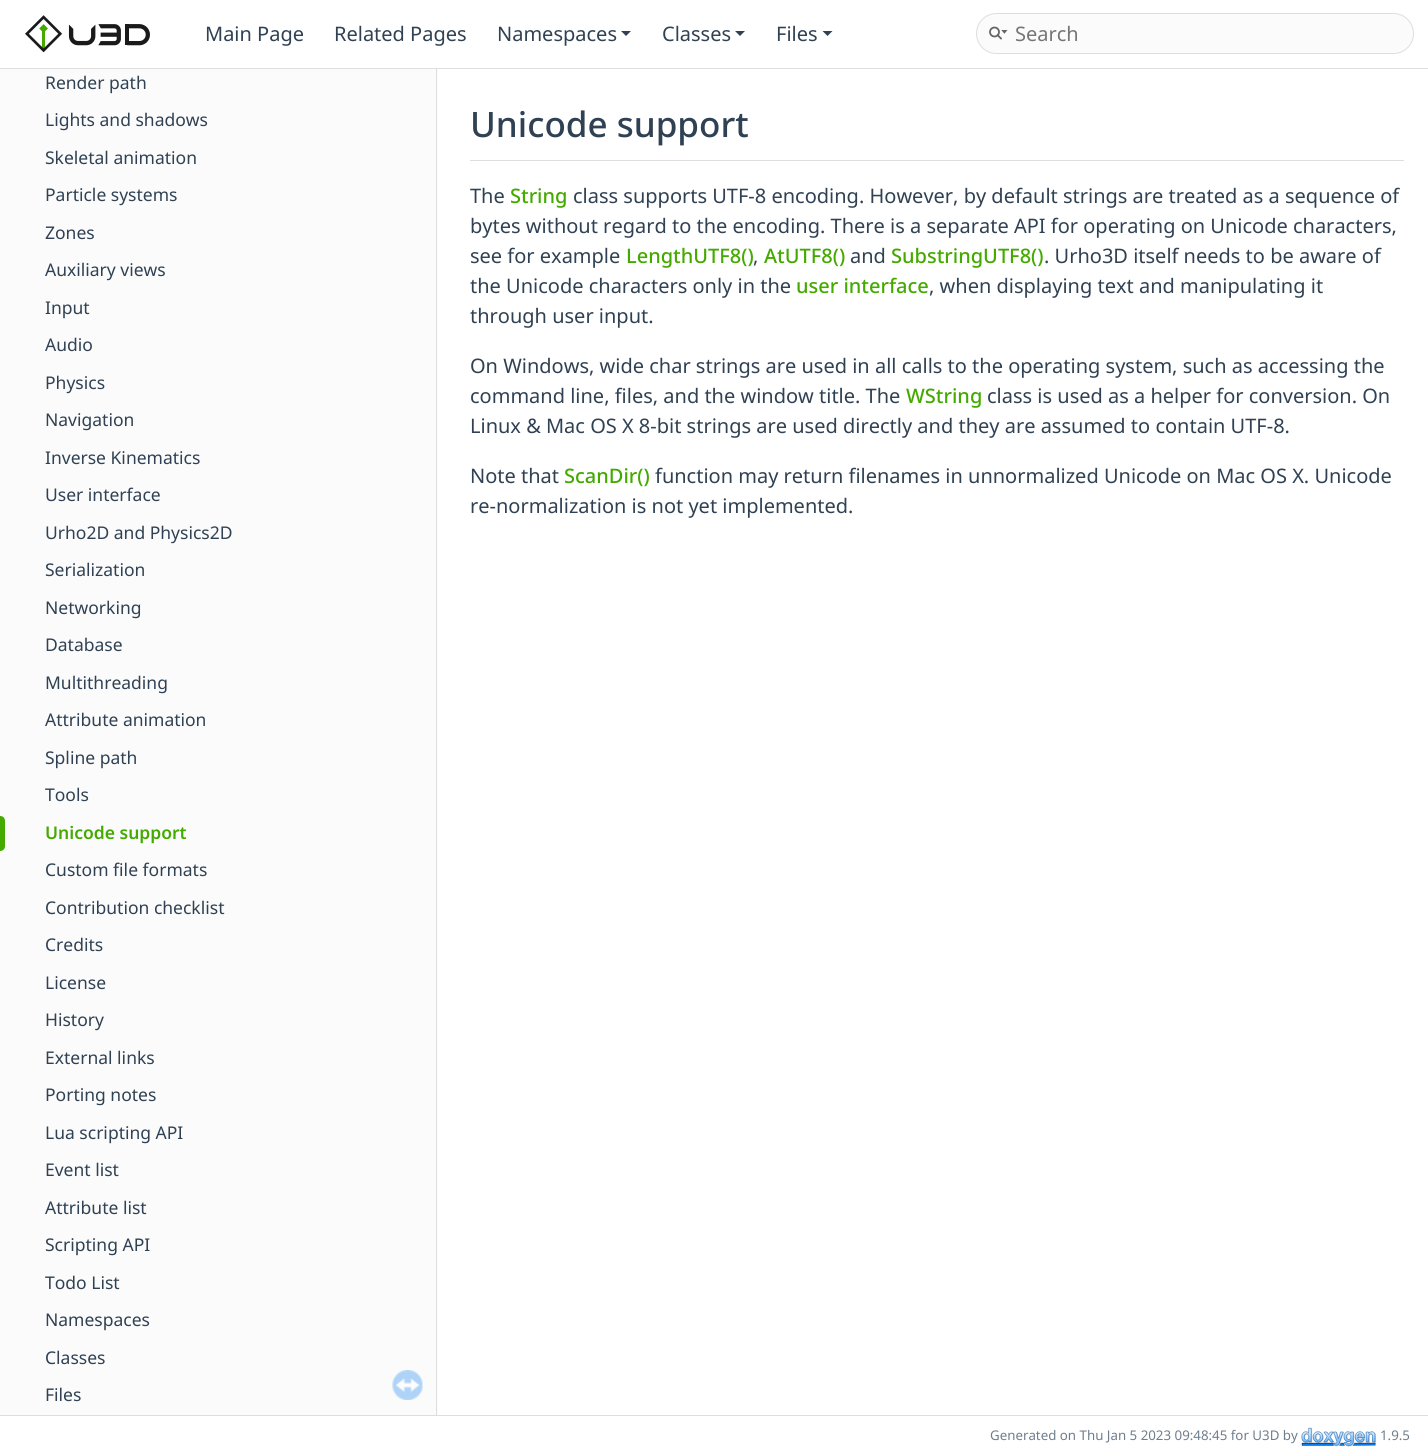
#include <cairo/cairo.h>
#include <math.h>
#include <stddef.h>


static void rounded_rect(cairo_t *cr, double x, double y, double w, double h, double r) {
  cairo_new_sub_path(cr);
  cairo_arc(cr, x + w - r, y + h - r, r, 0, M_PI / 2);
  cairo_arc(cr, x + r, y + h - r, r, M_PI / 2, M_PI);
  cairo_arc(cr, x + r, y + r, r, M_PI, 1.5 * M_PI);
  cairo_arc(cr, x + w - r, y + r, r, 1.5 * M_PI, 2 * M_PI);
  cairo_close_path(cr);
}

static void draw_image(cairo_t *cr, const char *path, double x, double y, double w, double h) {
  cairo_surface_t *image = cairo_image_surface_create_from_png(path);
  cairo_save(cr);
  cairo_set_source_surface(cr, image, x, y);
  cairo_rectangle(cr, x, y, w, h);
  cairo_fill(cr);
  cairo_restore(cr);
  cairo_surface_destroy(image);
}

static void draw(cairo_t *cr) {
  cairo_set_source_rgb(cr, 1, 1, 1);
  cairo_paint(cr);
  cairo_set_source_rgb(cr, 222 / 255.0, 222 / 255.0, 222 / 255.0);
  cairo_rectangle(cr, 0, 68, 1428, 1);
  cairo_fill(cr);
  draw_image(cr, "images/1.png", 25, 15, 125, 38);
  cairo_set_source_rgb(cr, 47 / 255.0, 65 / 255.0, 83 / 255.0);
  cairo_new_path(cr);
  cairo_move_to(cr, 621, 31);
  cairo_line_to(cr, 631, 31);
  cairo_line_to(cr, 626, 36);
  cairo_close_path(cr);
  cairo_fill(cr);
  cairo_new_path(cr);
  cairo_move_to(cr, 735, 31);
  cairo_line_to(cr, 745, 31);
  cairo_line_to(cr, 740, 36);
  cairo_close_path(cr);
  cairo_fill(cr);
  cairo_new_path(cr);
  cairo_move_to(cr, 822.5, 31);
  cairo_line_to(cr, 832.5, 31);
  cairo_line_to(cr, 827.5, 36);
  cairo_close_path(cr);
  cairo_fill(cr);
  cairo_set_source_rgb(cr, 251 / 255.0, 251 / 255.0, 251 / 255.0);
  rounded_rect(cr, 976.5, 13.5, 437, 40, 20);
  cairo_fill_preserve(cr);
  cairo_set_source_rgb(cr, 222 / 255.0, 222 / 255.0, 222 / 255.0);
  cairo_set_line_width(cr, 1);
  cairo_stroke(cr);
  draw_image(cr, "images/2.png", 989, 26, 19, 14);
  cairo_set_source_rgb(cr, 251 / 255.0, 251 / 255.0, 251 / 255.0);
  cairo_rectangle(cr, 0, 69, 438, 1346);
  cairo_fill(cr);
  cairo_set_source_rgb(cr, 68 / 255.0, 170 / 255.0, 0);
  cairo_new_path(cr);
  cairo_move_to(cr, 0, 816);
  cairo_curve_to(cr, 3, 816, 5, 818, 5, 821);
  cairo_line_to(cr, 5, 846);
  cairo_curve_to(cr, 5, 849, 3, 851, 0, 851);
  cairo_close_path(cr);
  cairo_fill(cr);
  draw_image(cr, "images/3.png", 392, 1370, 31, 30);
  cairo_set_source_rgb(cr, 222 / 255.0, 222 / 255.0, 222 / 255.0);
  cairo_rectangle(cr, 436, 69, 1, 1346);
  cairo_fill(cr);
  cairo_rectangle(cr, 470, 160, 934, 1);
  cairo_fill(cr);
  cairo_rectangle(cr, 0, 1415, 1428, 1);
  cairo_fill(cr);
  draw_image(cr, "images/4.png", 1301, 1427, 75, 20);
  cairo_select_font_face(cr, "Noto Sans", CAIRO_FONT_SLANT_NORMAL, CAIRO_FONT_WEIGHT_NORMAL);
  cairo_set_font_size(cr, 20);
  cairo_set_source_rgb(cr, 47 / 255.0, 65 / 255.0, 83 / 255.0);
  cairo_move_to(cr, 205, 41);
  cairo_show_text(cr, "Main Page");
  cairo_move_to(cr, 334, 41);
  cairo_show_text(cr, "Related Pages");
  cairo_move_to(cr, 497, 41);
  cairo_show_text(cr, "Namespaces");
  cairo_move_to(cr, 662, 41);
  cairo_show_text(cr, "Classes");
  cairo_move_to(cr, 776, 41);
  cairo_show_text(cr, "Files");
  cairo_set_source_rgb(cr, 117 / 255.0, 117 / 255.0, 117 / 255.0);
  cairo_move_to(cr, 1015, 41);
  cairo_show_text(cr, "Search");
  cairo_set_font_size(cr, 17.5);
  cairo_set_source_rgb(cr, 47 / 255.0, 65 / 255.0, 83 / 255.0);
  cairo_move_to(cr, 45, 89);
  cairo_show_text(cr, "Render path");
  cairo_move_to(cr, 45, 126);
  cairo_show_text(cr, "Lights and shadows");
  cairo_move_to(cr, 45, 164);
  cairo_show_text(cr, "Skeletal animation");
  cairo_move_to(cr, 45, 201);
  cairo_show_text(cr, "Particle systems");
  cairo_move_to(cr, 45, 239);
  cairo_show_text(cr, "Zones");
  cairo_move_to(cr, 45, 276);
  cairo_show_text(cr, "Auxiliary views");
  cairo_move_to(cr, 45, 314);
  cairo_show_text(cr, "Input");
  cairo_move_to(cr, 45, 351);
  cairo_show_text(cr, "Audio");
  cairo_move_to(cr, 45, 389);
  cairo_show_text(cr, "Physics");
  cairo_move_to(cr, 45, 426);
  cairo_show_text(cr, "Navigation");
  cairo_move_to(cr, 45, 464);
  cairo_show_text(cr, "Inverse Kinematics");
  cairo_move_to(cr, 45, 501);
  cairo_show_text(cr, "User interface");
  cairo_move_to(cr, 45, 539);
  cairo_show_text(cr, "Urho2D and Physics2D");
  cairo_move_to(cr, 45, 576);
  cairo_show_text(cr, "Serialization");
  cairo_move_to(cr, 45, 614);
  cairo_show_text(cr, "Networking");
  cairo_move_to(cr, 45, 651);
  cairo_show_text(cr, "Database");
  cairo_move_to(cr, 45, 689);
  cairo_show_text(cr, "Multithreading");
  cairo_move_to(cr, 45, 726);
  cairo_show_text(cr, "Attribute animation");
  cairo_move_to(cr, 45, 764);
  cairo_show_text(cr, "Spline path");
  cairo_move_to(cr, 45, 801);
  cairo_show_text(cr, "Tools");
  cairo_select_font_face(cr, "Noto Sans SemiBold", CAIRO_FONT_SLANT_NORMAL, CAIRO_FONT_WEIGHT_NORMAL);
  cairo_set_source_rgb(cr, 68 / 255.0, 170 / 255.0, 0);
  cairo_move_to(cr, 45, 839);
  cairo_show_text(cr, "Unicode support");
  cairo_select_font_face(cr, "Noto Sans", CAIRO_FONT_SLANT_NORMAL, CAIRO_FONT_WEIGHT_NORMAL);
  cairo_set_source_rgb(cr, 47 / 255.0, 65 / 255.0, 83 / 255.0);
  cairo_move_to(cr, 45, 876);
  cairo_show_text(cr, "Custom file formats");
  cairo_move_to(cr, 45, 914);
  cairo_show_text(cr, "Contribution checklist");
  cairo_move_to(cr, 45, 951);
  cairo_show_text(cr, "Credits");
  cairo_move_to(cr, 45, 989);
  cairo_show_text(cr, "License");
  cairo_move_to(cr, 45, 1026);
  cairo_show_text(cr, "History");
  cairo_move_to(cr, 45, 1064);
  cairo_show_text(cr, "External links");
  cairo_move_to(cr, 45, 1101);
  cairo_show_text(cr, "Porting notes");
  cairo_move_to(cr, 45, 1139);
  cairo_show_text(cr, "Lua scripting API");
  cairo_move_to(cr, 45, 1176);
  cairo_show_text(cr, "Event list");
  cairo_move_to(cr, 45, 1214);
  cairo_show_text(cr, "Attribute list");
  cairo_move_to(cr, 45, 1251);
  cairo_show_text(cr, "Scripting API");
  cairo_move_to(cr, 45, 1289);
  cairo_show_text(cr, "Todo List");
  cairo_move_to(cr, 45, 1326);
  cairo_show_text(cr, "Namespaces");
  cairo_move_to(cr, 45, 1364);
  cairo_show_text(cr, "Classes");
  cairo_move_to(cr, 45, 1401);
  cairo_show_text(cr, "Files");
  cairo_select_font_face(cr, "Noto Sans Medium", CAIRO_FONT_SLANT_NORMAL, CAIRO_FONT_WEIGHT_NORMAL);
  cairo_set_font_size(cr, 35);
  cairo_move_to(cr, 470, 137);
  cairo_show_text(cr, "Unicode support");
  cairo_select_font_face(cr, "Noto Sans", CAIRO_FONT_SLANT_NORMAL, CAIRO_FONT_WEIGHT_NORMAL);
  cairo_set_font_size(cr, 20);
  cairo_move_to(cr, 470, 203);
  cairo_show_text(cr, "The");
  cairo_select_font_face(cr, "Noto Sans Medium", CAIRO_FONT_SLANT_NORMAL, CAIRO_FONT_WEIGHT_NORMAL);
  cairo_set_source_rgb(cr, 68 / 255.0, 170 / 255.0, 0);
  cairo_move_to(cr, 510, 203);
  cairo_show_text(cr, "String");
  cairo_select_font_face(cr, "Noto Sans", CAIRO_FONT_SLANT_NORMAL, CAIRO_FONT_WEIGHT_NORMAL);
  cairo_set_source_rgb(cr, 47 / 255.0, 65 / 255.0, 83 / 255.0);
  cairo_move_to(cr, 573, 203);
  cairo_show_text(cr, "class supports UTF-8 encoding. However, by default strings are treated as a sequence of");
  cairo_move_to(cr, 470, 233);
  cairo_show_text(cr, "bytes without regard to the encoding. There is a separate API for operating on Unicode characters,");
  cairo_move_to(cr, 470, 263);
  cairo_show_text(cr, "see for example");
  cairo_select_font_face(cr, "Noto Sans Medium", CAIRO_FONT_SLANT_NORMAL, CAIRO_FONT_WEIGHT_NORMAL);
  cairo_set_source_rgb(cr, 68 / 255.0, 170 / 255.0, 0);
  cairo_move_to(cr, 626, 263);
  cairo_show_text(cr, "LengthUTF8()");
  cairo_select_font_face(cr, "Noto Sans", CAIRO_FONT_SLANT_NORMAL, CAIRO_FONT_WEIGHT_NORMAL);
  cairo_set_source_rgb(cr, 47 / 255.0, 65 / 255.0, 83 / 255.0);
  cairo_move_to(cr, 753, 263);
  cairo_show_text(cr, ",");
  cairo_select_font_face(cr, "Noto Sans Medium", CAIRO_FONT_SLANT_NORMAL, CAIRO_FONT_WEIGHT_NORMAL);
  cairo_set_source_rgb(cr, 68 / 255.0, 170 / 255.0, 0);
  cairo_move_to(cr, 764, 263);
  cairo_show_text(cr, "AtUTF8()");
  cairo_select_font_face(cr, "Noto Sans", CAIRO_FONT_SLANT_NORMAL, CAIRO_FONT_WEIGHT_NORMAL);
  cairo_set_source_rgb(cr, 47 / 255.0, 65 / 255.0, 83 / 255.0);
  cairo_move_to(cr, 850, 263);
  cairo_show_text(cr, "and");
  cairo_select_font_face(cr, "Noto Sans Medium", CAIRO_FONT_SLANT_NORMAL, CAIRO_FONT_WEIGHT_NORMAL);
  cairo_set_source_rgb(cr, 68 / 255.0, 170 / 255.0, 0);
  cairo_move_to(cr, 891, 263);
  cairo_show_text(cr, "SubstringUTF8()");
  cairo_select_font_face(cr, "Noto Sans", CAIRO_FONT_SLANT_NORMAL, CAIRO_FONT_WEIGHT_NORMAL);
  cairo_set_source_rgb(cr, 47 / 255.0, 65 / 255.0, 83 / 255.0);
  cairo_move_to(cr, 1044, 263);
  cairo_show_text(cr, ". Urho3D itself needs to be aware of");
  cairo_move_to(cr, 470, 293);
  cairo_show_text(cr, "the Unicode characters only in the");
  cairo_select_font_face(cr, "Noto Sans Medium", CAIRO_FONT_SLANT_NORMAL, CAIRO_FONT_WEIGHT_NORMAL);
  cairo_set_source_rgb(cr, 68 / 255.0, 170 / 255.0, 0);
  cairo_move_to(cr, 796, 293);
  cairo_show_text(cr, "user interface");
  cairo_select_font_face(cr, "Noto Sans", CAIRO_FONT_SLANT_NORMAL, CAIRO_FONT_WEIGHT_NORMAL);
  cairo_set_source_rgb(cr, 47 / 255.0, 65 / 255.0, 83 / 255.0);
  cairo_move_to(cr, 929, 293);
  cairo_show_text(cr, ", when displaying text and manipulating it");
  cairo_move_to(cr, 470, 323);
  cairo_show_text(cr, "through user input.");
  cairo_move_to(cr, 470, 373);
  cairo_show_text(cr, "On Windows, wide char strings are used in all calls to the operating system, such as accessing the");
  cairo_move_to(cr, 470, 403);
  cairo_show_text(cr, "command line, files, and the window title. The");
  cairo_select_font_face(cr, "Noto Sans Medium", CAIRO_FONT_SLANT_NORMAL, CAIRO_FONT_WEIGHT_NORMAL);
  cairo_set_source_rgb(cr, 68 / 255.0, 170 / 255.0, 0);
  cairo_move_to(cr, 906, 403);
  cairo_show_text(cr, "WString");
  cairo_select_font_face(cr, "Noto Sans", CAIRO_FONT_SLANT_NORMAL, CAIRO_FONT_WEIGHT_NORMAL);
  cairo_set_source_rgb(cr, 47 / 255.0, 65 / 255.0, 83 / 255.0);
  cairo_move_to(cr, 987, 403);
  cairo_show_text(cr, "class is used as a helper for conversion. On");
  cairo_move_to(cr, 470, 433);
  cairo_show_text(cr, "Linux & Mac OS X 8-bit strings are used directly and they are assumed to contain UTF-8.");
  cairo_move_to(cr, 470, 483);
  cairo_show_text(cr, "Note that");
  cairo_select_font_face(cr, "Noto Sans Medium", CAIRO_FONT_SLANT_NORMAL, CAIRO_FONT_WEIGHT_NORMAL);
  cairo_set_source_rgb(cr, 68 / 255.0, 170 / 255.0, 0);
  cairo_move_to(cr, 564, 483);
  cairo_show_text(cr, "ScanDir()");
  cairo_select_font_face(cr, "Noto Sans", CAIRO_FONT_SLANT_NORMAL, CAIRO_FONT_WEIGHT_NORMAL);
  cairo_set_source_rgb(cr, 47 / 255.0, 65 / 255.0, 83 / 255.0);
  cairo_move_to(cr, 655, 483);
  cairo_show_text(cr, "function may return filenames in unnormalized Unicode on Mac OS X. Unicode");
  cairo_move_to(cr, 470, 513);
  cairo_show_text(cr, "re-normalization is not yet implemented.");
  cairo_set_font_size(cr, 13.3);
  cairo_set_source_rgb(cr, 111 / 255.0, 126 / 255.0, 142 / 255.0);
  cairo_move_to(cr, 990, 1440);
  cairo_show_text(cr, "Generated on Thu Jan 5 2023 09:48:45 for U3D by");
  cairo_move_to(cr, 1380, 1440);
  cairo_show_text(cr, "1.9.5");
}

int main(void) {
  cairo_surface_t *surface = cairo_image_surface_create(CAIRO_FORMAT_RGB24, 1428, 1453);
  cairo_t *cr = cairo_create(surface);
  cairo_font_options_t *options = cairo_font_options_create();
  cairo_font_options_set_hint_metrics(options, CAIRO_HINT_METRICS_OFF);
  cairo_font_options_set_hint_style(options, CAIRO_HINT_STYLE_NONE);
  cairo_set_font_options(cr, options);
  cairo_set_miter_limit(cr, 4);
  draw(cr);
  cairo_surface_write_to_png(surface, "out.png");
  cairo_font_options_destroy(options);
  cairo_destroy(cr);
  cairo_surface_destroy(surface);
  return 0;
}
